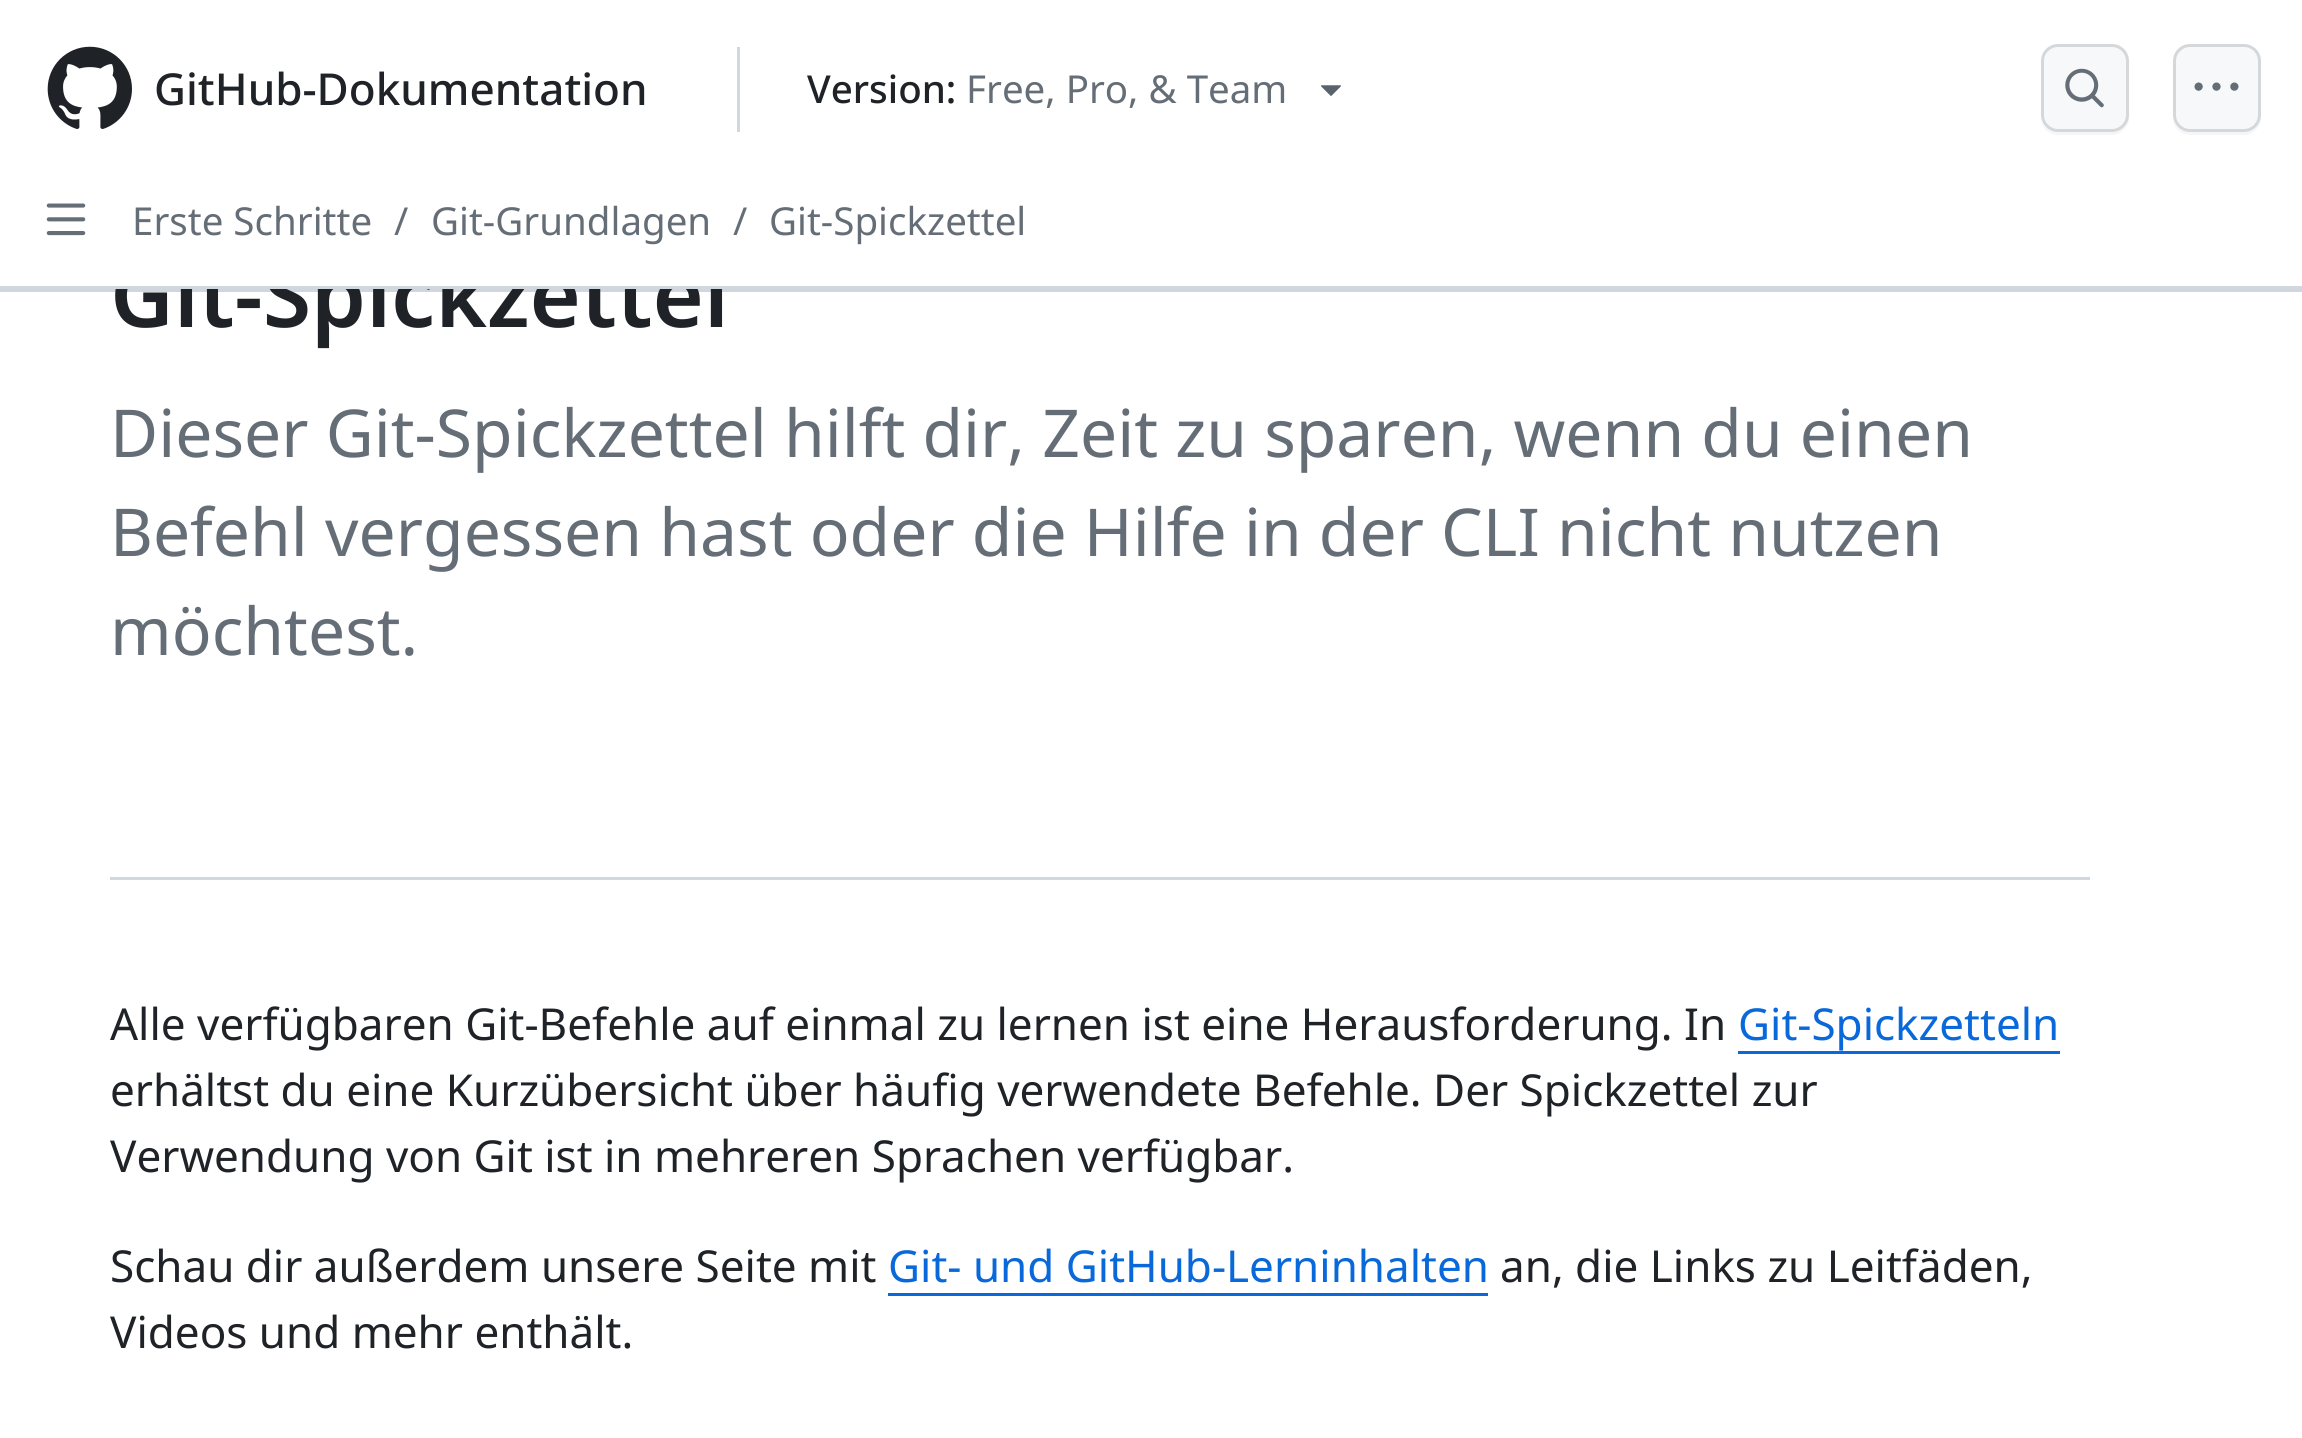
#include <cairo/cairo.h>
#include <math.h>
#include <stddef.h>


static void rounded_rect(cairo_t *cr, double x, double y, double w, double h, double r) {
  cairo_new_sub_path(cr);
  cairo_arc(cr, x + w - r, y + h - r, r, 0, M_PI / 2);
  cairo_arc(cr, x + r, y + h - r, r, M_PI / 2, M_PI);
  cairo_arc(cr, x + r, y + r, r, M_PI, 1.5 * M_PI);
  cairo_arc(cr, x + w - r, y + r, r, 1.5 * M_PI, 2 * M_PI);
  cairo_close_path(cr);
}

static void draw_image(cairo_t *cr, const char *path, double x, double y, double w, double h) {
  cairo_surface_t *image = cairo_image_surface_create_from_png(path);
  cairo_save(cr);
  cairo_set_source_surface(cr, image, x, y);
  cairo_rectangle(cr, x, y, w, h);
  cairo_fill(cr);
  cairo_restore(cr);
  cairo_surface_destroy(image);
}

static void draw(cairo_t *cr) {
  cairo_set_source_rgb(cr, 1, 1, 1);
  cairo_paint(cr);
  cairo_set_source_rgb(cr, 216 / 255.0, 222 / 255.0, 228 / 255.0);
  cairo_rectangle(cr, 0, 289, 2302, 3);
  cairo_fill(cr);
  cairo_set_source_rgba(cr, 31 / 255.0, 35 / 255.0, 40 / 255.0, 0.04);
  cairo_new_path(cr);
  cairo_move_to(cr, 0, 289);
  cairo_line_to(cr, 0, 292);
  cairo_line_to(cr, 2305, 292);
  cairo_line_to(cr, 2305, 3);
  cairo_line_to(cr, 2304, 3);
  cairo_line_to(cr, 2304, 289);
  cairo_close_path(cr);
  cairo_fill(cr);
  draw_image(cr, "images/1.png", 47, 46, 85, 83);
  cairo_set_source_rgb(cr, 208 / 255.0, 215 / 255.0, 222 / 255.0);
  cairo_rectangle(cr, 737, 47, 3, 85);
  cairo_fill(cr);
  draw_image(cr, "images/2.png", 1321, 85, 20, 11);
  cairo_set_source_rgb(cr, 246 / 255.0, 246 / 255.0, 246 / 255.0);
  cairo_new_path(cr);
  cairo_move_to(cr, 2041, 120);
  cairo_curve_to(cr, 2042, 128, 2049, 135, 2058, 135);
  cairo_line_to(cr, 2112, 135);
  cairo_curve_to(cr, 2121, 135, 2129, 127, 2129, 118);
  cairo_line_to(cr, 2129, 64);
  cairo_line_to(cr, 2128, 60);
  cairo_line_to(cr, 2128, 119);
  cairo_line_to(cr, 2126, 125);
  cairo_curve_to(cr, 2120, 133, 2111, 132, 2103, 132);
  cairo_line_to(cr, 2066, 132);
  cairo_curve_to(cr, 2056, 132, 2045, 132, 2041, 120);
  cairo_close_path(cr);
  cairo_fill(cr);
  cairo_set_source_rgb(cr, 246 / 255.0, 248 / 255.0, 250 / 255.0);
  rounded_rect(cr, 2041, 44, 88, 88, 17);
  cairo_fill(cr);
  rounded_rect(cr, 2042.5, 45.5, 85, 85, 15.5);
  cairo_set_source_rgba(cr, 31 / 255.0, 35 / 255.0, 40 / 255.0, 0.15);
  cairo_set_line_width(cr, 3);
  cairo_stroke(cr);
  draw_image(cr, "images/3.png", 2065, 68, 39, 40);
  cairo_set_source_rgb(cr, 246 / 255.0, 246 / 255.0, 246 / 255.0);
  cairo_new_path(cr);
  cairo_move_to(cr, 2173, 120);
  cairo_curve_to(cr, 2174, 128, 2181, 135, 2190, 135);
  cairo_line_to(cr, 2244, 135);
  cairo_curve_to(cr, 2253, 135, 2261, 127, 2261, 118);
  cairo_line_to(cr, 2261, 64);
  cairo_line_to(cr, 2260, 60);
  cairo_line_to(cr, 2260, 119);
  cairo_line_to(cr, 2258, 125);
  cairo_curve_to(cr, 2252, 133, 2243, 132, 2235, 132);
  cairo_line_to(cr, 2198, 132);
  cairo_curve_to(cr, 2188, 132, 2177, 132, 2173, 120);
  cairo_close_path(cr);
  cairo_fill(cr);
  cairo_set_source_rgb(cr, 246 / 255.0, 248 / 255.0, 250 / 255.0);
  rounded_rect(cr, 2173, 44, 88, 88, 17);
  cairo_fill(cr);
  rounded_rect(cr, 2174.5, 45.5, 85, 85, 15.5);
  cairo_set_source_rgba(cr, 31 / 255.0, 35 / 255.0, 40 / 255.0, 0.15);
  cairo_stroke(cr);
  draw_image(cr, "images/4.png", 2194, 82, 45, 9);
  draw_image(cr, "images/5.png", 46, 203, 40, 33);
  cairo_set_source_rgb(cr, 208 / 255.0, 215 / 255.0, 222 / 255.0);
  cairo_rectangle(cr, 110, 877, 1980, 3);
  cairo_fill(cr);
  cairo_set_source_rgb(cr, 9 / 255.0, 105 / 255.0, 218 / 255.0);
  cairo_rectangle(cr, 1738, 1051, 322, 3);
  cairo_fill(cr);
  cairo_rectangle(cr, 888, 1293, 600, 3);
  cairo_fill(cr);
  cairo_select_font_face(cr, "Noto Sans Medium", CAIRO_FONT_SLANT_NORMAL, CAIRO_FONT_WEIGHT_NORMAL);
  cairo_set_font_size(cr, 44);
  cairo_set_source_rgb(cr, 31 / 255.0, 35 / 255.0, 40 / 255.0);
  cairo_move_to(cr, 154, 105);
  cairo_show_text(cr, "GitHub-Dokumentation");
  cairo_set_font_size(cr, 38.5);
  cairo_move_to(cr, 807, 103);
  cairo_show_text(cr, "Version:");
  cairo_select_font_face(cr, "Noto Sans", CAIRO_FONT_SLANT_NORMAL, CAIRO_FONT_WEIGHT_NORMAL);
  cairo_set_source_rgb(cr, 101 / 255.0, 109 / 255.0, 118 / 255.0);
  cairo_move_to(cr, 966, 103);
  cairo_show_text(cr, "Free, Pro, & Team");
  cairo_move_to(cr, 132, 235);
  cairo_show_text(cr, "Erste Schritte");
  cairo_move_to(cr, 394, 235);
  cairo_show_text(cr, "/");
  cairo_move_to(cr, 431, 235);
  cairo_show_text(cr, "Git-Grundlagen");
  cairo_move_to(cr, 733, 235);
  cairo_show_text(cr, "/");
  cairo_move_to(cr, 769, 235);
  cairo_show_text(cr, "Git-Spickzettel");
  cairo_select_font_face(cr, "Noto Sans SemiBold", CAIRO_FONT_SLANT_NORMAL, CAIRO_FONT_WEIGHT_NORMAL);
  cairo_set_font_size(cr, 88);
  cairo_set_source_rgb(cr, 31 / 255.0, 35 / 255.0, 40 / 255.0);
  cairo_move_to(cr, 110, 327);
  cairo_show_text(cr, "Git-Spickzettel");
  cairo_set_source_rgb(cr, 208 / 255.0, 215 / 255.0, 222 / 255.0);
  cairo_rectangle(cr, 0, 286, 2302, 3);
  cairo_fill(cr);
  cairo_set_source_rgb(cr, 1, 1, 1);
  cairo_rectangle(cr, 116, 260, 607, 26);
  cairo_fill(cr);
  cairo_select_font_face(cr, "Noto Sans", CAIRO_FONT_SLANT_NORMAL, CAIRO_FONT_WEIGHT_NORMAL);
  cairo_set_font_size(cr, 66);
  cairo_set_source_rgb(cr, 101 / 255.0, 109 / 255.0, 118 / 255.0);
  cairo_move_to(cr, 110, 457);
  cairo_show_text(cr, "Dieser Git-Spickzettel hilft dir, Zeit zu sparen, wenn du einen");
  cairo_move_to(cr, 110, 556);
  cairo_show_text(cr, "Befehl vergessen hast oder die Hilfe in der CLI nicht nutzen");
  cairo_move_to(cr, 110, 655);
  cairo_show_text(cr, "möchtest.");
  cairo_set_font_size(cr, 44);
  cairo_set_source_rgb(cr, 31 / 255.0, 35 / 255.0, 40 / 255.0);
  cairo_move_to(cr, 110, 1040);
  cairo_show_text(cr, "Alle verfügbaren Git-Befehle auf einmal zu lernen ist eine Herausforderung. In");
  cairo_set_source_rgb(cr, 9 / 255.0, 105 / 255.0, 218 / 255.0);
  cairo_move_to(cr, 1738, 1040);
  cairo_show_text(cr, "Git-Spickzetteln");
  cairo_set_source_rgb(cr, 31 / 255.0, 35 / 255.0, 40 / 255.0);
  cairo_move_to(cr, 110, 1106);
  cairo_show_text(cr, "erhältst du eine Kurzübersicht über häufig verwendete Befehle. Der Spickzettel zur");
  cairo_move_to(cr, 110, 1172);
  cairo_show_text(cr, "Verwendung von Git ist in mehreren Sprachen verfügbar.");
  cairo_move_to(cr, 110, 1282);
  cairo_show_text(cr, "Schau dir außerdem unsere Seite mit");
  cairo_set_source_rgb(cr, 9 / 255.0, 105 / 255.0, 218 / 255.0);
  cairo_move_to(cr, 888, 1282);
  cairo_show_text(cr, "Git- und GitHub-Lerninhalten");
  cairo_set_source_rgb(cr, 31 / 255.0, 35 / 255.0, 40 / 255.0);
  cairo_move_to(cr, 1500, 1282);
  cairo_show_text(cr, "an, die Links zu Leitfäden,");
  cairo_move_to(cr, 110, 1348);
  cairo_show_text(cr, "Videos und mehr enthält.");
}

int main(void) {
  cairo_surface_t *surface = cairo_image_surface_create(CAIRO_FORMAT_RGB24, 2302, 1438);
  cairo_t *cr = cairo_create(surface);
  cairo_font_options_t *options = cairo_font_options_create();
  cairo_font_options_set_hint_metrics(options, CAIRO_HINT_METRICS_OFF);
  cairo_font_options_set_hint_style(options, CAIRO_HINT_STYLE_NONE);
  cairo_set_font_options(cr, options);
  cairo_set_miter_limit(cr, 4);
  draw(cr);
  cairo_surface_write_to_png(surface, "out.png");
  cairo_font_options_destroy(options);
  cairo_destroy(cr);
  cairo_surface_destroy(surface);
  return 0;
}
